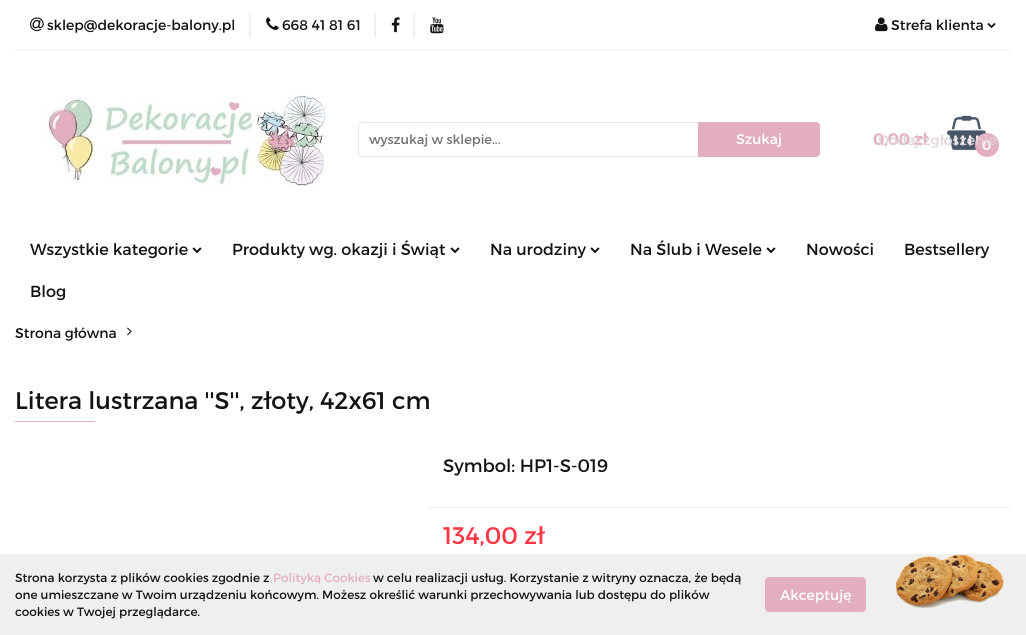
#include <cairo/cairo.h>
#include <math.h>
#include <stddef.h>


static void rounded_rect(cairo_t *cr, double x, double y, double w, double h, double r) {
  cairo_new_sub_path(cr);
  cairo_arc(cr, x + w - r, y + h - r, r, 0, M_PI / 2);
  cairo_arc(cr, x + r, y + h - r, r, M_PI / 2, M_PI);
  cairo_arc(cr, x + r, y + r, r, M_PI, 1.5 * M_PI);
  cairo_arc(cr, x + w - r, y + r, r, 1.5 * M_PI, 2 * M_PI);
  cairo_close_path(cr);
}

static void draw_image(cairo_t *cr, const char *path, double x, double y, double w, double h) {
  cairo_surface_t *image = cairo_image_surface_create_from_png(path);
  cairo_save(cr);
  cairo_set_source_surface(cr, image, x, y);
  cairo_rectangle(cr, x, y, w, h);
  cairo_fill(cr);
  cairo_restore(cr);
  cairo_surface_destroy(image);
}

static void draw(cairo_t *cr) {
  cairo_set_source_rgb(cr, 1, 1, 1);
  cairo_paint(cr);
  cairo_set_source_rgb(cr, 239 / 255.0, 239 / 255.0, 239 / 255.0);
  cairo_rectangle(cr, 15, 50, 996, 1);
  cairo_fill(cr);
  draw_image(cr, "images/1.png", 30, 17, 14, 15);
  cairo_rectangle(cr, 249, 13, 2, 25);
  cairo_fill(cr);
  draw_image(cr, "images/2.png", 266, 17, 13, 13);
  cairo_rectangle(cr, 374, 13, 2, 25);
  cairo_fill(cr);
  draw_image(cr, "images/3.png", 391, 17, 9, 16);
  cairo_rectangle(cr, 413, 13, 2, 25);
  cairo_fill(cr);
  draw_image(cr, "images/4.png", 430, 17, 14, 17);
  draw_image(cr, "images/5.png", 875, 17, 13, 15);
  draw_image(cr, "images/6.png", 987, 23, 9, 6);
  draw_image(cr, "images/7.png", 43, 95, 285, 95);
  cairo_set_source_rgb(cr, 236 / 255.0, 233 / 255.0, 233 / 255.0);
  cairo_set_fill_rule(cr, CAIRO_FILL_RULE_EVEN_ODD);
  cairo_new_path(cr);
  cairo_move_to(cr, 361, 122);
  cairo_line_to(cr, 698, 122);
  cairo_line_to(cr, 698, 157);
  cairo_line_to(cr, 361, 157);
  cairo_curve_to(cr, 359, 157, 358, 156, 358, 154);
  cairo_line_to(cr, 358, 125);
  cairo_curve_to(cr, 358, 123, 359, 122, 361, 122);
  cairo_close_path(cr);
  cairo_move_to(cr, 361, 123);
  cairo_line_to(cr, 698, 123);
  cairo_line_to(cr, 698, 156);
  cairo_line_to(cr, 361, 156);
  cairo_curve_to(cr, 360, 156, 359, 155, 359, 154);
  cairo_line_to(cr, 359, 125);
  cairo_curve_to(cr, 359, 124, 360, 123, 361, 123);
  cairo_close_path(cr);
  cairo_fill(cr);
  cairo_set_source_rgb(cr, 227 / 255.0, 174 / 255.0, 192 / 255.0);
  cairo_new_path(cr);
  cairo_move_to(cr, 699.5, 123.5);
  cairo_line_to(cr, 816, 123.5);
  cairo_curve_to(cr, 817.5, 123.5, 818.5, 124.5, 818.5, 126);
  cairo_line_to(cr, 818.5, 153);
  cairo_curve_to(cr, 818.5, 154.5, 817.5, 155.5, 816, 155.5);
  cairo_line_to(cr, 699.5, 155.5);
  cairo_close_path(cr);
  cairo_fill_preserve(cr);
  cairo_set_line_width(cr, 3);
  cairo_stroke(cr);
  draw_image(cr, "images/8.png", 947, 115, 39, 35);
  cairo_arc(cr, 987, 145, 12, 0, 2 * M_PI);
  cairo_fill(cr);
  draw_image(cr, "images/9.png", 192, 247, 10, 7);
  draw_image(cr, "images/9.png", 450, 247, 10, 7);
  draw_image(cr, "images/9.png", 590, 247, 10, 7);
  draw_image(cr, "images/9.png", 766, 247, 10, 7);
  draw_image(cr, "images/10.png", 127, 327, 5, 9);
  cairo_rectangle(cr, 15, 421, 80, 1);
  cairo_fill(cr);
  cairo_set_source_rgb(cr, 239 / 255.0, 239 / 255.0, 239 / 255.0);
  cairo_rectangle(cr, 428, 507, 583, 1);
  cairo_fill(cr);
  cairo_rectangle(cr, 0, 554, 1026, 81);
  cairo_fill(cr);
  cairo_set_source_rgb(cr, 227 / 255.0, 174 / 255.0, 192 / 255.0);
  rounded_rect(cr, 766.5, 578.5, 98, 32, 2.5);
  cairo_fill_preserve(cr);
  cairo_stroke(cr);
  draw_image(cr, "images/11.png", 896, 554, 108, 55);
  cairo_select_font_face(cr, "Montserrat", CAIRO_FONT_SLANT_NORMAL, CAIRO_FONT_WEIGHT_NORMAL);
  cairo_set_font_size(cr, 14);
  cairo_set_source_rgb(cr, 19 / 255.0, 19 / 255.0, 19 / 255.0);
  cairo_move_to(cr, 47, 30);
  cairo_show_text(cr, "sklep@dekoracje-balony.pl");
  cairo_move_to(cr, 282, 30);
  cairo_show_text(cr, "668 41 81 61");
  cairo_move_to(cr, 891, 30);
  cairo_show_text(cr, "Strefa klienta");
  cairo_set_font_size(cr, 13);
  cairo_set_source_rgb(cr, 113 / 255.0, 113 / 255.0, 113 / 255.0);
  cairo_move_to(cr, 369, 144);
  cairo_show_text(cr, "wyszukaj w sklepie...");
  cairo_set_font_size(cr, 14);
  cairo_set_source_rgb(cr, 1, 1, 1);
  cairo_move_to(cr, 736, 144);
  cairo_show_text(cr, "Szukaj");
  cairo_select_font_face(cr, "Montserrat", CAIRO_FONT_SLANT_NORMAL, CAIRO_FONT_WEIGHT_BOLD);
  cairo_set_font_size(cr, 16);
  cairo_set_source_rgb(cr, 227 / 255.0, 174 / 255.0, 192 / 255.0);
  cairo_move_to(cr, 873, 145);
  cairo_show_text(cr, "0,00 zł");
  cairo_set_font_size(cr, 13);
  cairo_set_source_rgb(cr, 1, 1, 1);
  cairo_move_to(cr, 982, 150);
  cairo_show_text(cr, "0");
  cairo_select_font_face(cr, "Montserrat", CAIRO_FONT_SLANT_NORMAL, CAIRO_FONT_WEIGHT_NORMAL);
  cairo_set_font_size(cr, 14);
  cairo_set_source_rgb(cr, 224 / 255.0, 211 / 255.0, 218 / 255.0);
  cairo_move_to(cr, 878, 145);
  cairo_show_text(cr, "Dodaj zgłoszenie");
  cairo_set_font_size(cr, 16);
  cairo_set_source_rgb(cr, 19 / 255.0, 19 / 255.0, 19 / 255.0);
  cairo_move_to(cr, 30, 255);
  cairo_show_text(cr, "Wszystkie kategorie");
  cairo_move_to(cr, 232, 255);
  cairo_show_text(cr, "Produkty wg. okazji i Świąt");
  cairo_move_to(cr, 490, 255);
  cairo_show_text(cr, "Na urodziny");
  cairo_move_to(cr, 630, 255);
  cairo_show_text(cr, "Na Ślub i Wesele");
  cairo_move_to(cr, 806, 255);
  cairo_show_text(cr, "Nowości");
  cairo_move_to(cr, 904, 255);
  cairo_show_text(cr, "Bestsellery");
  cairo_move_to(cr, 30, 297);
  cairo_show_text(cr, "Blog");
  cairo_set_font_size(cr, 14);
  cairo_move_to(cr, 15, 338);
  cairo_show_text(cr, "Strona główna");
  cairo_set_font_size(cr, 24);
  cairo_move_to(cr, 15, 409);
  cairo_show_text(cr, "Litera lustrzana ''S'', złoty, 42x61 cm");
  cairo_set_font_size(cr, 18);
  cairo_move_to(cr, 443, 472);
  cairo_show_text(cr, "Symbol: HP1-S-019");
  cairo_set_font_size(cr, 24);
  cairo_set_source_rgb(cr, 1, 53 / 255.0, 69 / 255.0);
  cairo_move_to(cr, 443, 544);
  cairo_show_text(cr, "134,00 zł");
  cairo_set_font_size(cr, 12);
  cairo_set_source_rgb(cr, 19 / 255.0, 19 / 255.0, 19 / 255.0);
  cairo_move_to(cr, 15, 582);
  cairo_show_text(cr, "Strona korzysta z plików cookies zgodnie z");
  cairo_set_source_rgb(cr, 227 / 255.0, 174 / 255.0, 192 / 255.0);
  cairo_move_to(cr, 273, 582);
  cairo_show_text(cr, "Polityką Cookies");
  cairo_set_source_rgb(cr, 19 / 255.0, 19 / 255.0, 19 / 255.0);
  cairo_move_to(cr, 373, 582);
  cairo_show_text(cr, "w celu realizacji usług. Korzystanie z witryny oznacza, że będą");
  cairo_move_to(cr, 15, 599);
  cairo_show_text(cr, "one umieszczane w Twoim urządzeniu końcowym. Możesz określić warunki przechowywania lub dostępu do plików");
  cairo_move_to(cr, 15, 616);
  cairo_show_text(cr, "cookies w Twojej przeglądarce.");
  cairo_set_font_size(cr, 14);
  cairo_set_source_rgb(cr, 1, 1, 1);
  cairo_move_to(cr, 780, 600);
  cairo_show_text(cr, "Akceptuję");
}

int main(void) {
  cairo_surface_t *surface = cairo_image_surface_create(CAIRO_FORMAT_RGB24, 1026, 635);
  cairo_t *cr = cairo_create(surface);
  cairo_font_options_t *options = cairo_font_options_create();
  cairo_font_options_set_hint_metrics(options, CAIRO_HINT_METRICS_OFF);
  cairo_font_options_set_hint_style(options, CAIRO_HINT_STYLE_NONE);
  cairo_set_font_options(cr, options);
  cairo_set_miter_limit(cr, 4);
  draw(cr);
  cairo_surface_write_to_png(surface, "out.png");
  cairo_font_options_destroy(options);
  cairo_destroy(cr);
  cairo_surface_destroy(surface);
  return 0;
}
